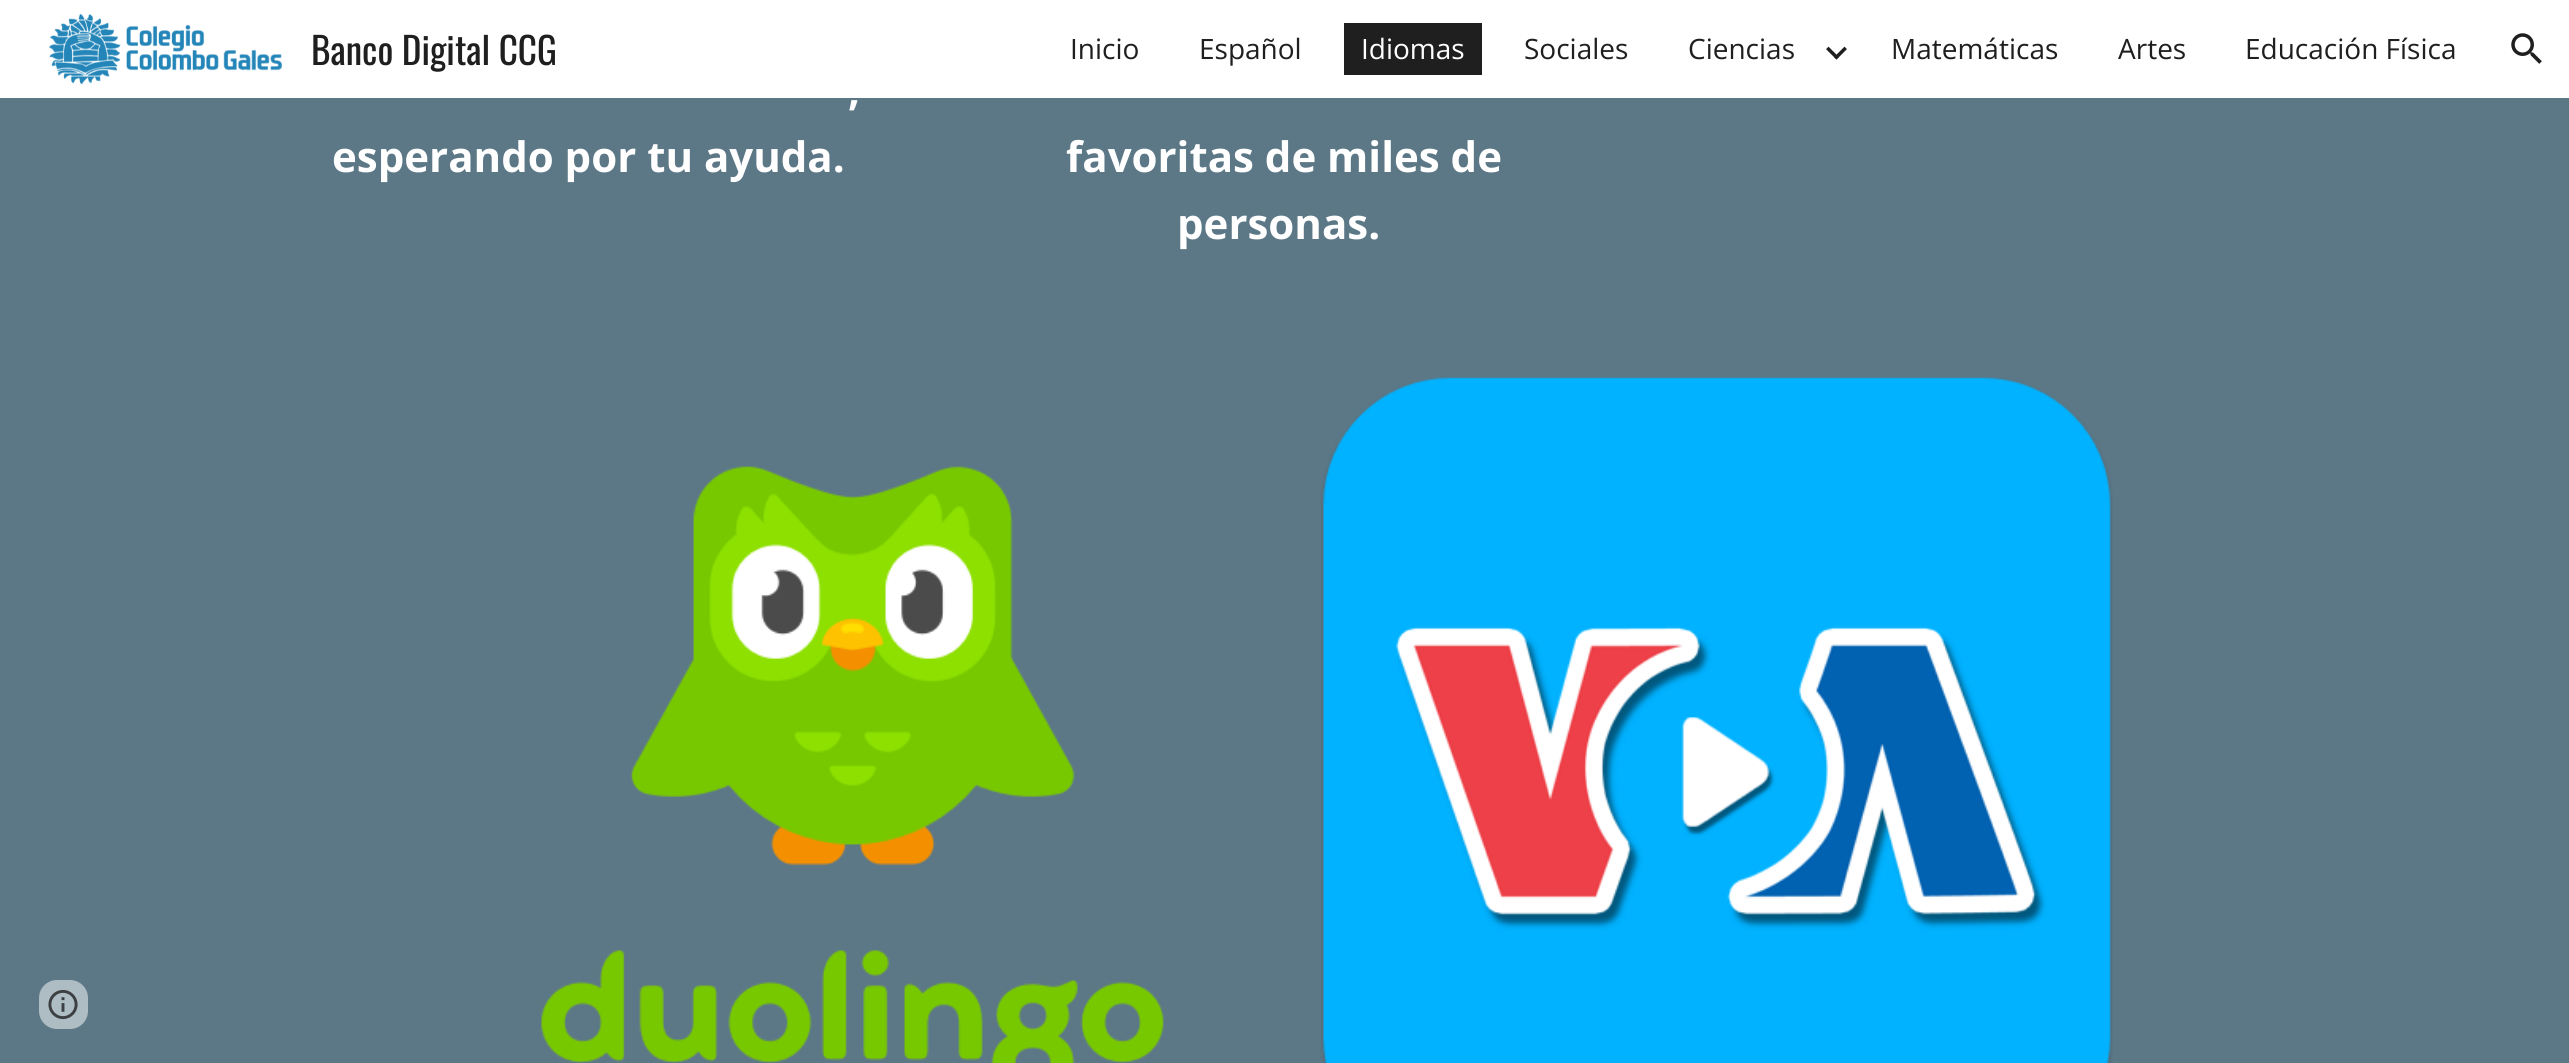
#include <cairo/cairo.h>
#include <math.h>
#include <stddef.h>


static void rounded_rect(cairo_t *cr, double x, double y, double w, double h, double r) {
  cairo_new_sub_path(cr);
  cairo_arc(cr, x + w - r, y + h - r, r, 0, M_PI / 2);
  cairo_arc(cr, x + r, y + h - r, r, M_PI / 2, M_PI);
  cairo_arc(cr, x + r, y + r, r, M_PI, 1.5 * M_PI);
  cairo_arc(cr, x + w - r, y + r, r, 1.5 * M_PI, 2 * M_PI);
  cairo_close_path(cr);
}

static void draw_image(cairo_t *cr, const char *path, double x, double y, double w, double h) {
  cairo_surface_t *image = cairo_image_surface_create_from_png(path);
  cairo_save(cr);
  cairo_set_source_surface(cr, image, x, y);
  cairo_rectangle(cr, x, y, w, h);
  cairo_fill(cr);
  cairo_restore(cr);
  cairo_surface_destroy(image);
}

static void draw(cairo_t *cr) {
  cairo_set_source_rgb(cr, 92 / 255.0, 120 / 255.0, 135 / 255.0);
  cairo_paint(cr);
  cairo_set_source_rgb(cr, 1, 1, 1);
  cairo_rectangle(cr, 0, 0, 2569, 98);
  cairo_fill(cr);
  draw_image(cr, "images/1.png", 49, 14, 233, 71);
  cairo_set_source_rgb(cr, 31 / 255.0, 31 / 255.0, 31 / 255.0);
  cairo_rectangle(cr, 1344, 23, 138, 52);
  cairo_fill(cr);
  draw_image(cr, "images/2.png", 1826, 46, 21, 14);
  draw_image(cr, "images/3.png", 2511, 33, 31, 31);
  draw_image(cr, "images/4.png", 541, 466, 623, 597);
  draw_image(cr, "images/5.png", 1320, 377, 793, 686);
  cairo_set_source_rgb(cr, 174 / 255.0, 188 / 255.0, 195 / 255.0);
  rounded_rect(cr, 39, 980, 49, 49, 18);
  cairo_fill(cr);
  draw_image(cr, "images/6.png", 48, 989, 30, 31);
  cairo_select_font_face(cr, "Oswald", CAIRO_FONT_SLANT_NORMAL, CAIRO_FONT_WEIGHT_NORMAL);
  cairo_set_font_size(cr, 37.25);
  cairo_set_source_rgb(cr, 31 / 255.0, 31 / 255.0, 31 / 255.0);
  cairo_move_to(cr, 311, 65);
  cairo_show_text(cr, "Banco Digital CCG");
  cairo_select_font_face(cr, "Open Sans", CAIRO_FONT_SLANT_NORMAL, CAIRO_FONT_WEIGHT_NORMAL);
  cairo_set_font_size(cr, 28);
  cairo_move_to(cr, 1070, 59);
  cairo_show_text(cr, "Inicio");
  cairo_move_to(cr, 1199, 59);
  cairo_show_text(cr, "Español");
  cairo_set_source_rgb(cr, 1, 1, 1);
  cairo_move_to(cr, 1361, 59);
  cairo_show_text(cr, "Idiomas");
  cairo_set_source_rgb(cr, 31 / 255.0, 31 / 255.0, 31 / 255.0);
  cairo_move_to(cr, 1524, 59);
  cairo_show_text(cr, "Sociales");
  cairo_move_to(cr, 1688, 59);
  cairo_show_text(cr, "Ciencias");
  cairo_move_to(cr, 1891, 59);
  cairo_show_text(cr, "Matemáticas");
  cairo_move_to(cr, 2118, 59);
  cairo_show_text(cr, "Artes");
  cairo_move_to(cr, 2245, 59);
  cairo_show_text(cr, "Educación Física");
  cairo_select_font_face(cr, "Open Sans", CAIRO_FONT_SLANT_NORMAL, CAIRO_FONT_WEIGHT_BOLD);
  cairo_set_font_size(cr, 42);
  cairo_set_source_rgb(cr, 1, 1, 1);
  cairo_move_to(cr, 848, 105);
  cairo_show_text(cr, ",");
  cairo_move_to(cr, 332, 172);
  cairo_show_text(cr, "esperando por tu ayuda.");
  cairo_move_to(cr, 1066, 172);
  cairo_show_text(cr, "favoritas de miles de");
  cairo_move_to(cr, 1177, 239);
  cairo_show_text(cr, "personas.");
}

int main(void) {
  cairo_surface_t *surface = cairo_image_surface_create(CAIRO_FORMAT_RGB24, 2569, 1063);
  cairo_t *cr = cairo_create(surface);
  cairo_font_options_t *options = cairo_font_options_create();
  cairo_font_options_set_hint_metrics(options, CAIRO_HINT_METRICS_OFF);
  cairo_font_options_set_hint_style(options, CAIRO_HINT_STYLE_NONE);
  cairo_set_font_options(cr, options);
  cairo_set_miter_limit(cr, 4);
  draw(cr);
  cairo_surface_write_to_png(surface, "out.png");
  cairo_font_options_destroy(options);
  cairo_destroy(cr);
  cairo_surface_destroy(surface);
  return 0;
}
